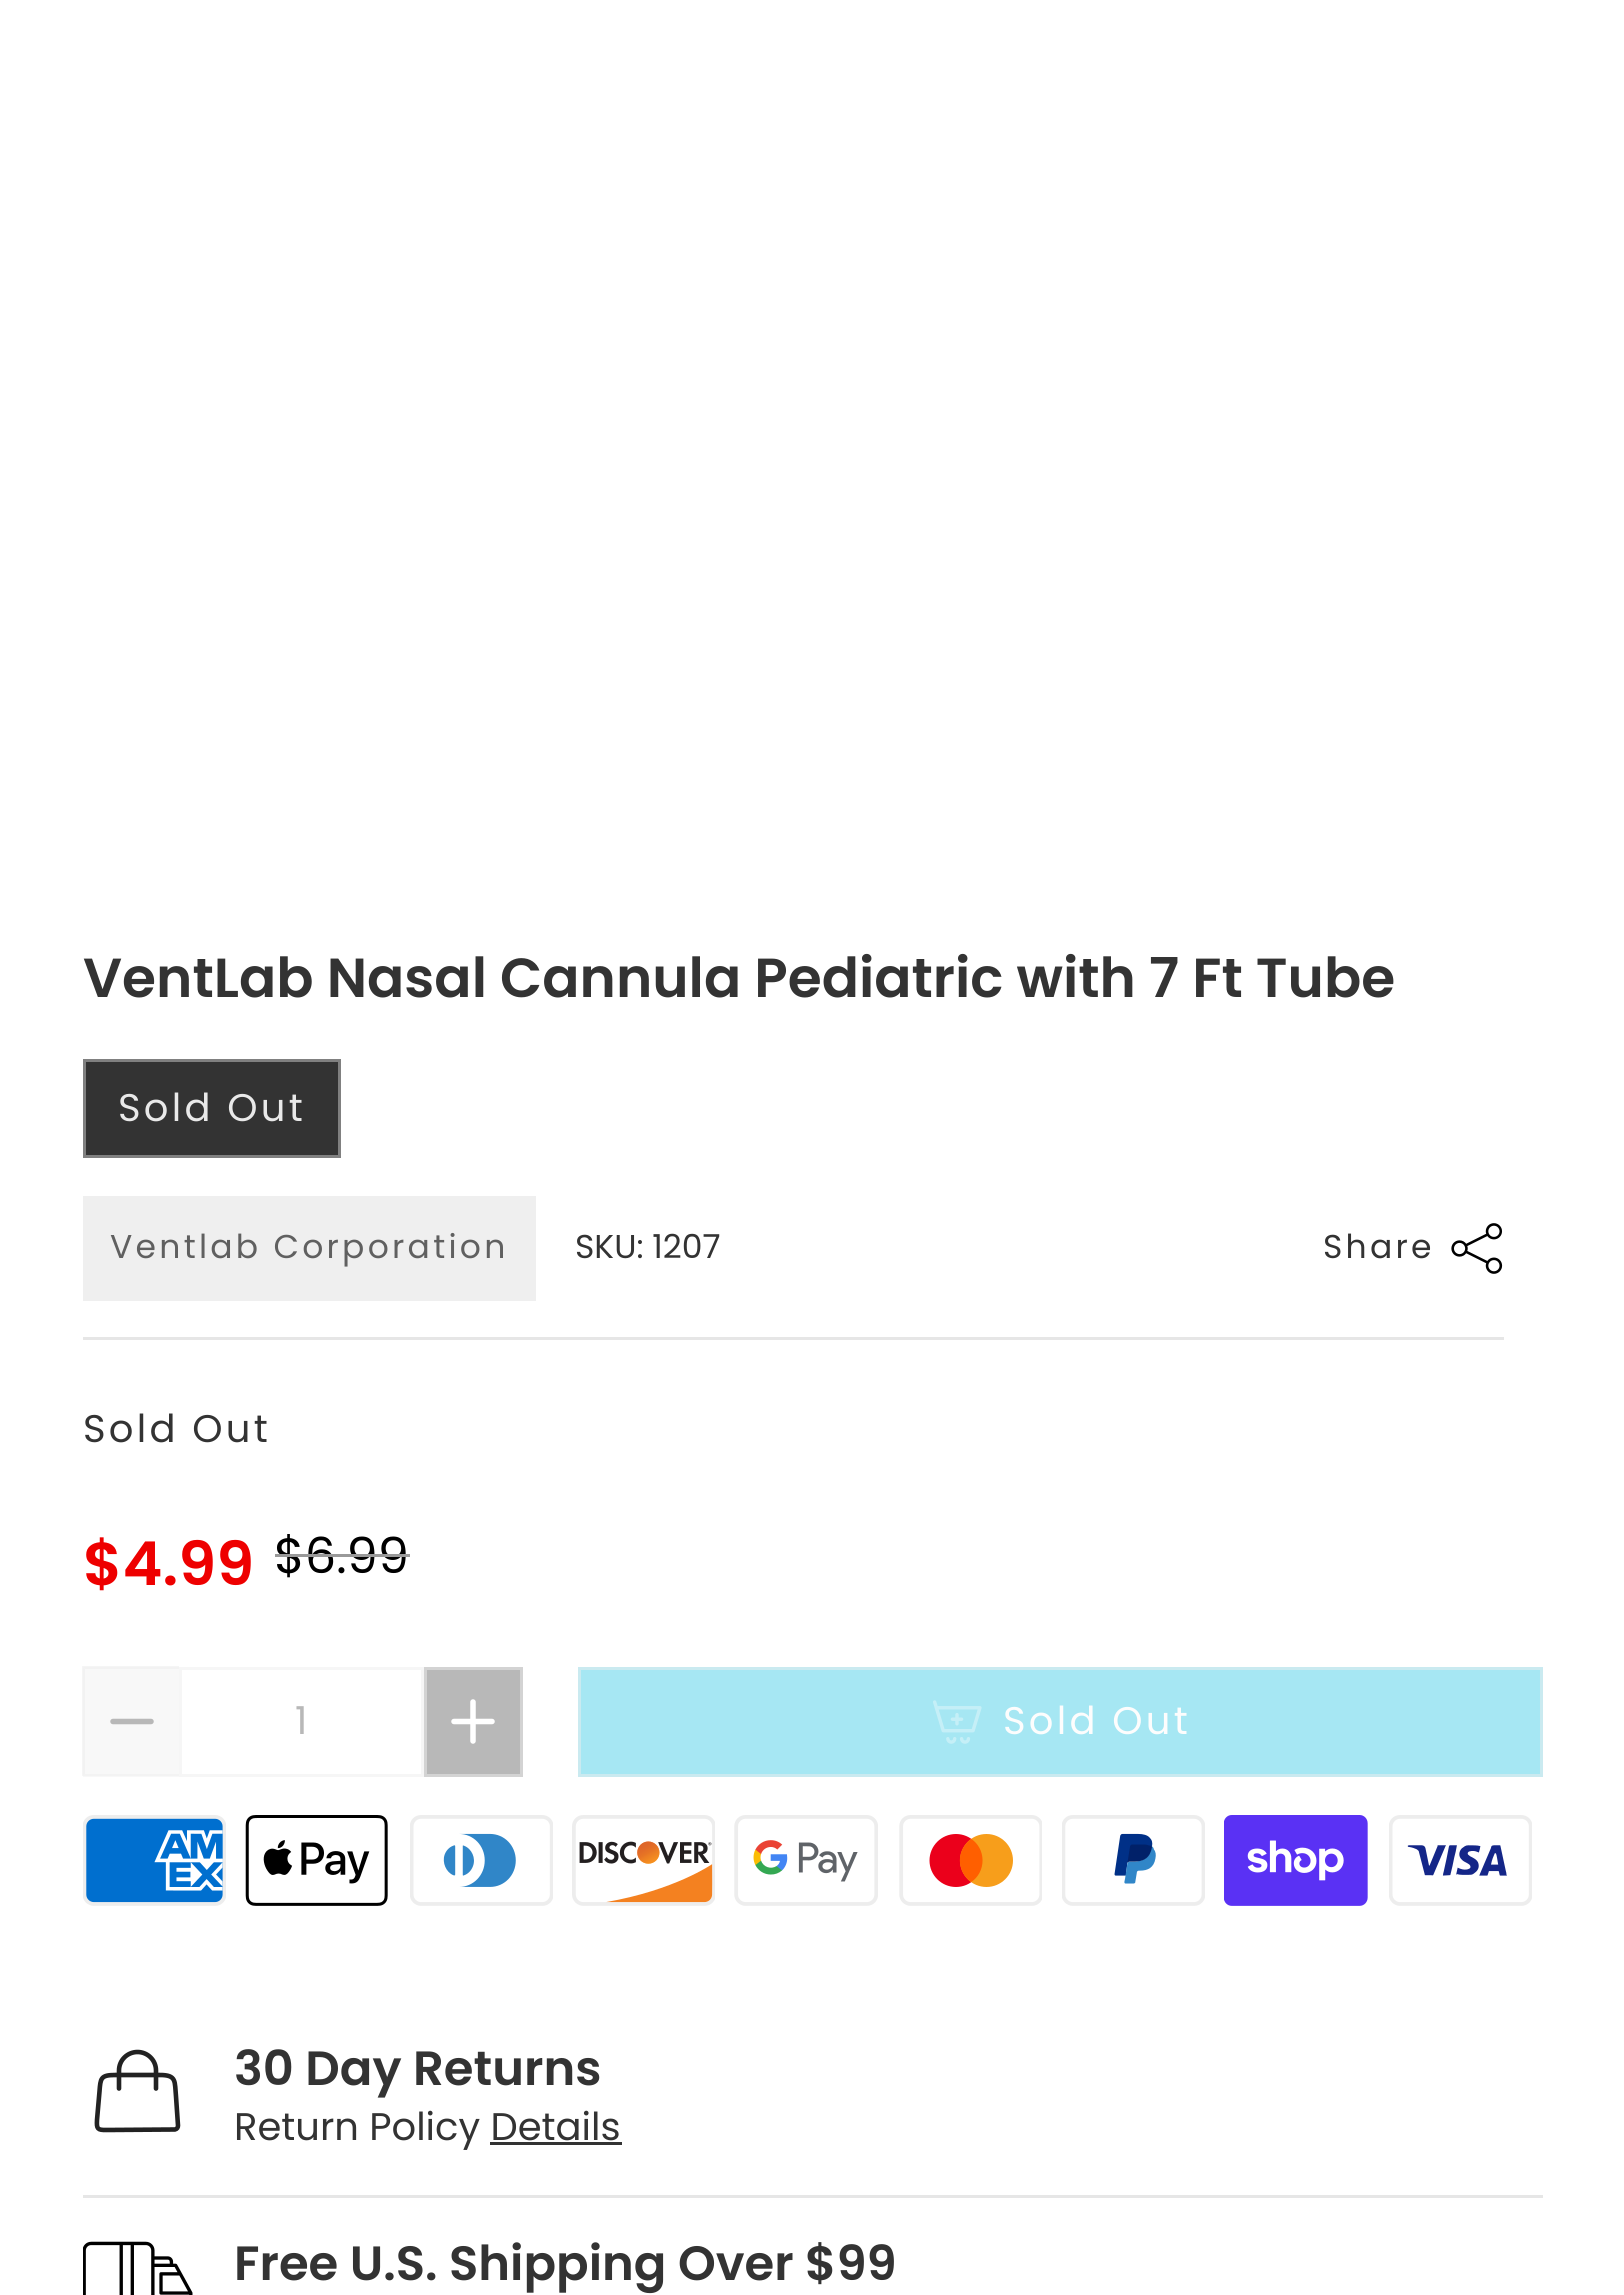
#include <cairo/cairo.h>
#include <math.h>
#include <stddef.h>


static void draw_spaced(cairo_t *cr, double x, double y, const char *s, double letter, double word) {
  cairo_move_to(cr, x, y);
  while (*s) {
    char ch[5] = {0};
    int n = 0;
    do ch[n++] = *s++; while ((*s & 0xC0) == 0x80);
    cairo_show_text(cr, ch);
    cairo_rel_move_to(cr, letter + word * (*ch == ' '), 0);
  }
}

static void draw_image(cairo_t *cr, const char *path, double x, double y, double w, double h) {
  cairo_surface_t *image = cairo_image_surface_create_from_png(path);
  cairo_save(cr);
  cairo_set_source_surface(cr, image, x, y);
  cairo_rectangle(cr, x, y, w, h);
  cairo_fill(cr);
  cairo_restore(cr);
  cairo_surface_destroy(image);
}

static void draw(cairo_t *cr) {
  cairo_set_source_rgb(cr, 1, 1, 1);
  cairo_paint(cr);
  cairo_set_source_rgb(cr, 51 / 255.0, 51 / 255.0, 51 / 255.0);
  cairo_rectangle(cr, 84.5, 1060.5, 255, 96);
  cairo_fill_preserve(cr);
  cairo_set_source_rgb(cr, 128 / 255.0, 128 / 255.0, 128 / 255.0);
  cairo_set_line_width(cr, 3);
  cairo_stroke(cr);
  cairo_set_source_rgb(cr, 230 / 255.0, 230 / 255.0, 230 / 255.0);
  cairo_rectangle(cr, 83, 1337, 1421, 3);
  cairo_fill(cr);
  cairo_set_source_rgb(cr, 239 / 255.0, 239 / 255.0, 239 / 255.0);
  cairo_rectangle(cr, 83, 1196, 453, 105);
  cairo_fill(cr);
  draw_image(cr, "images/1.png", 1451, 1223, 52, 51);
  cairo_set_source_rgb(cr, 248 / 255.0, 248 / 255.0, 248 / 255.0);
  cairo_rectangle(cr, 83, 1667, 96, 110);
  cairo_fill(cr);
  cairo_set_source_rgba(cr, 237 / 255.0, 237 / 255.0, 237 / 255.0, 0.5);
  cairo_new_path(cr);
  cairo_move_to(cr, 82, 1666);
  cairo_line_to(cr, 179, 1666);
  cairo_line_to(cr, 179, 1669);
  cairo_line_to(cr, 85, 1669);
  cairo_close_path(cr);
  cairo_fill(cr);
  cairo_set_source_rgb(cr, 243 / 255.0, 243 / 255.0, 243 / 255.0);
  cairo_new_path(cr);
  cairo_move_to(cr, 179, 1776);
  cairo_line_to(cr, 82, 1776);
  cairo_line_to(cr, 85, 1774);
  cairo_line_to(cr, 179, 1774);
  cairo_close_path(cr);
  cairo_fill(cr);
  cairo_set_source_rgba(cr, 237 / 255.0, 237 / 255.0, 237 / 255.0, 0.5);
  cairo_new_path(cr);
  cairo_move_to(cr, 82, 1776);
  cairo_line_to(cr, 82, 1666);
  cairo_line_to(cr, 85, 1669);
  cairo_line_to(cr, 85, 1774);
  cairo_close_path(cr);
  cairo_fill(cr);
  cairo_new_path(cr);
  cairo_move_to(cr, 113, 1721.5);
  cairo_line_to(cr, 151, 1721.5);
  cairo_set_source_rgb(cr, 184 / 255.0, 184 / 255.0, 184 / 255.0);
  cairo_set_line_width(cr, 5.5);
  cairo_set_line_cap(cr, CAIRO_LINE_CAP_ROUND);
  cairo_set_line_join(cr, CAIRO_LINE_JOIN_ROUND);
  cairo_stroke(cr);
  cairo_rectangle(cr, 180.5, 1668.5, 242, 107);
  cairo_set_source_rgb(cr, 246 / 255.0, 246 / 255.0, 246 / 255.0);
  cairo_set_line_width(cr, 3);
  cairo_set_line_cap(cr, CAIRO_LINE_CAP_BUTT);
  cairo_set_line_join(cr, CAIRO_LINE_JOIN_MITER);
  cairo_stroke(cr);
  cairo_set_source_rgb(cr, 184 / 255.0, 184 / 255.0, 184 / 255.0);
  cairo_rectangle(cr, 425.5, 1668.5, 96, 107);
  cairo_fill_preserve(cr);
  cairo_set_source_rgb(cr, 211 / 255.0, 211 / 255.0, 211 / 255.0);
  cairo_stroke(cr);
  cairo_new_path(cr);
  cairo_move_to(cr, 473, 1702);
  cairo_line_to(cr, 473, 1741);
  cairo_move_to(cr, 454, 1721.5);
  cairo_line_to(cr, 492, 1721.5);
  cairo_set_source_rgb(cr, 1, 1, 1);
  cairo_set_line_width(cr, 5.5);
  cairo_set_line_cap(cr, CAIRO_LINE_CAP_ROUND);
  cairo_set_line_join(cr, CAIRO_LINE_JOIN_ROUND);
  cairo_stroke(cr);
  cairo_set_source_rgb(cr, 166 / 255.0, 231 / 255.0, 243 / 255.0);
  cairo_rectangle(cr, 579.5, 1668.5, 962, 107);
  cairo_fill_preserve(cr);
  cairo_set_source_rgb(cr, 202 / 255.0, 234 / 255.0, 240 / 255.0);
  cairo_set_line_width(cr, 3);
  cairo_set_line_cap(cr, CAIRO_LINE_CAP_BUTT);
  cairo_set_line_join(cr, CAIRO_LINE_JOIN_MITER);
  cairo_stroke(cr);
  draw_image(cr, "images/2.png", 933, 1700, 49, 44);
  draw_image(cr, "images/3.png", 83, 1815, 143, 91);
  draw_image(cr, "images/4.png", 245, 1815, 143, 91);
  draw_image(cr, "images/5.png", 410, 1815, 143, 91);
  draw_image(cr, "images/6.png", 572, 1815, 143, 91);
  draw_image(cr, "images/7.png", 734, 1815, 144, 91);
  draw_image(cr, "images/8.png", 899, 1815, 143, 91);
  draw_image(cr, "images/9.png", 1062, 1815, 143, 91);
  draw_image(cr, "images/10.png", 1224, 1815, 144, 91);
  draw_image(cr, "images/11.png", 1389, 1815, 143, 91);
  cairo_set_source_rgb(cr, 230 / 255.0, 230 / 255.0, 230 / 255.0);
  cairo_rectangle(cr, 83, 2195, 1460, 3);
  cairo_fill(cr);
  cairo_new_path(cr);
  cairo_move_to(cr, 119, 2088.5);
  cairo_line_to(cr, 119, 2070.5);
  cairo_curve_to(cr, 119, 2060, 127.5, 2052, 137.5, 2052);
  cairo_curve_to(cr, 147.5, 2052, 156, 2060, 156, 2070.5);
  cairo_line_to(cr, 156, 2088.5);
  cairo_set_source_rgb(cr, 34 / 255.0, 34 / 255.0, 34 / 255.0);
  cairo_set_line_width(cr, 4.6);
  cairo_set_line_cap(cr, CAIRO_LINE_CAP_ROUND);
  cairo_stroke(cr);
  cairo_new_path(cr);
  cairo_move_to(cr, 99.5, 2091.5);
  cairo_curve_to(cr, 100.5, 2078.5, 100.5, 2075, 115, 2075);
  cairo_line_to(cr, 160, 2075);
  cairo_curve_to(cr, 177, 2075, 174.5, 2081.5, 176, 2096.5);
  cairo_line_to(cr, 178, 2125.5);
  cairo_curve_to(cr, 178, 2127.5, 177, 2129, 175, 2129.5);
  cairo_line_to(cr, 106, 2130);
  cairo_curve_to(cr, 97.5, 2130, 96.5, 2129, 97, 2120);
  cairo_close_path(cr);
  cairo_set_line_cap(cr, CAIRO_LINE_CAP_BUTT);
  cairo_stroke(cr);
  cairo_set_source_rgb(cr, 51 / 255.0, 51 / 255.0, 51 / 255.0);
  cairo_rectangle(cr, 490, 2142, 132, 3);
  cairo_fill(cr);
  draw_image(cr, "images/12.png", 83, 2241, 110, 54);
  cairo_select_font_face(cr, "Poppins SemiBold", CAIRO_FONT_SLANT_NORMAL, CAIRO_FONT_WEIGHT_NORMAL);
  cairo_set_font_size(cr, 55);
  cairo_move_to(cr, 83, 997);
  cairo_show_text(cr, "VentLab Nasal Cannula Pediatric with 7 Ft Tube");
  cairo_select_font_face(cr, "Poppins", CAIRO_FONT_SLANT_NORMAL, CAIRO_FONT_WEIGHT_NORMAL);
  cairo_set_font_size(cr, 38.5);
  cairo_set_source_rgb(cr, 233 / 255.0, 233 / 255.0, 233 / 255.0);
  draw_spaced(cr, 118, 1121, "Sold Out", 3.25, 0);
  cairo_set_font_size(cr, 33);
  cairo_set_source_rgb(cr, 96 / 255.0, 96 / 255.0, 96 / 255.0);
  draw_spaced(cr, 110, 1258, "Ventlab Corporation", 3.25, 0);
  cairo_set_source_rgb(cr, 51 / 255.0, 51 / 255.0, 51 / 255.0);
  cairo_move_to(cr, 575, 1258);
  cairo_show_text(cr, "SKU: 1207");
  draw_spaced(cr, 1323, 1258, "Share", 3.25, 0);
  cairo_set_font_size(cr, 38.5);
  draw_spaced(cr, 83, 1442, "Sold Out", 3.25, 0);
  cairo_select_font_face(cr, "Poppins SemiBold", CAIRO_FONT_SLANT_NORMAL, CAIRO_FONT_WEIGHT_NORMAL);
  cairo_set_font_size(cr, 60.5);
  cairo_set_source_rgb(cr, 238 / 255.0, 0, 0);
  cairo_move_to(cr, 83, 1585);
  cairo_show_text(cr, "$4.99");
  cairo_select_font_face(cr, "Poppins", CAIRO_FONT_SLANT_NORMAL, CAIRO_FONT_WEIGHT_NORMAL);
  cairo_set_font_size(cr, 49.5);
  cairo_set_source_rgb(cr, 0, 0, 0);
  cairo_move_to(cr, 274, 1573);
  cairo_show_text(cr, "$6.99");
  cairo_set_source_rgb(cr, 153 / 255.0, 153 / 255.0, 153 / 255.0);
  cairo_rectangle(cr, 275, 1554, 135, 3);
  cairo_fill(cr);
  cairo_set_font_size(cr, 38.5);
  cairo_set_source_rgb(cr, 184 / 255.0, 184 / 255.0, 184 / 255.0);
  cairo_move_to(cr, 295, 1734);
  cairo_show_text(cr, "1");
  cairo_set_source_rgb(cr, 253 / 255.0, 253 / 255.0, 253 / 255.0);
  draw_spaced(cr, 1003, 1734, "Sold Out", 3.25, 0);
  cairo_select_font_face(cr, "Poppins SemiBold", CAIRO_FONT_SLANT_NORMAL, CAIRO_FONT_WEIGHT_NORMAL);
  cairo_set_font_size(cr, 48.1);
  cairo_set_source_rgb(cr, 51 / 255.0, 51 / 255.0, 51 / 255.0);
  cairo_move_to(cr, 234, 2085);
  cairo_show_text(cr, "30 Day Returns");
  cairo_select_font_face(cr, "Poppins", CAIRO_FONT_SLANT_NORMAL, CAIRO_FONT_WEIGHT_NORMAL);
  cairo_set_font_size(cr, 38.5);
  cairo_move_to(cr, 234, 2140);
  cairo_show_text(cr, "Return Policy Details");
  cairo_select_font_face(cr, "Poppins SemiBold", CAIRO_FONT_SLANT_NORMAL, CAIRO_FONT_WEIGHT_NORMAL);
  cairo_set_font_size(cr, 48.1);
  cairo_move_to(cr, 234, 2280);
  cairo_show_text(cr, "Free U.S. Shipping Over $99");
}

int main(void) {
  cairo_surface_t *surface = cairo_image_surface_create(CAIRO_FORMAT_RGB24, 1624, 2295);
  cairo_t *cr = cairo_create(surface);
  cairo_font_options_t *options = cairo_font_options_create();
  cairo_font_options_set_hint_metrics(options, CAIRO_HINT_METRICS_OFF);
  cairo_font_options_set_hint_style(options, CAIRO_HINT_STYLE_NONE);
  cairo_set_font_options(cr, options);
  cairo_set_miter_limit(cr, 4);
  draw(cr);
  cairo_surface_write_to_png(surface, "out.png");
  cairo_font_options_destroy(options);
  cairo_destroy(cr);
  cairo_surface_destroy(surface);
  return 0;
}
